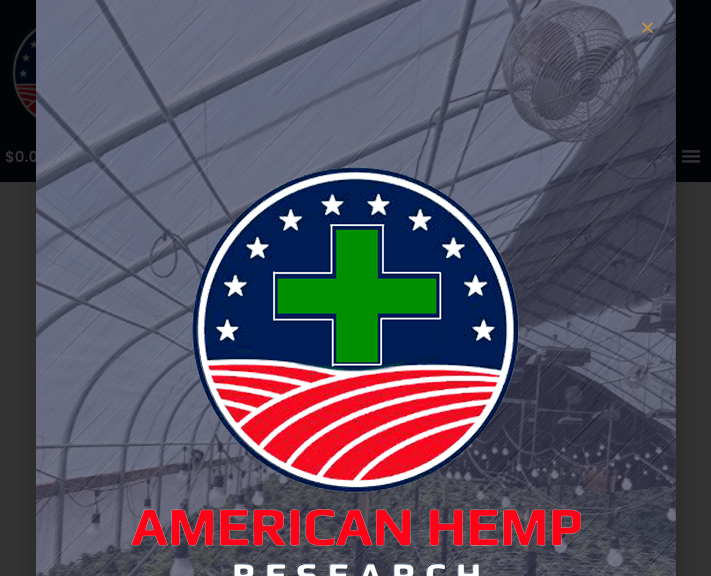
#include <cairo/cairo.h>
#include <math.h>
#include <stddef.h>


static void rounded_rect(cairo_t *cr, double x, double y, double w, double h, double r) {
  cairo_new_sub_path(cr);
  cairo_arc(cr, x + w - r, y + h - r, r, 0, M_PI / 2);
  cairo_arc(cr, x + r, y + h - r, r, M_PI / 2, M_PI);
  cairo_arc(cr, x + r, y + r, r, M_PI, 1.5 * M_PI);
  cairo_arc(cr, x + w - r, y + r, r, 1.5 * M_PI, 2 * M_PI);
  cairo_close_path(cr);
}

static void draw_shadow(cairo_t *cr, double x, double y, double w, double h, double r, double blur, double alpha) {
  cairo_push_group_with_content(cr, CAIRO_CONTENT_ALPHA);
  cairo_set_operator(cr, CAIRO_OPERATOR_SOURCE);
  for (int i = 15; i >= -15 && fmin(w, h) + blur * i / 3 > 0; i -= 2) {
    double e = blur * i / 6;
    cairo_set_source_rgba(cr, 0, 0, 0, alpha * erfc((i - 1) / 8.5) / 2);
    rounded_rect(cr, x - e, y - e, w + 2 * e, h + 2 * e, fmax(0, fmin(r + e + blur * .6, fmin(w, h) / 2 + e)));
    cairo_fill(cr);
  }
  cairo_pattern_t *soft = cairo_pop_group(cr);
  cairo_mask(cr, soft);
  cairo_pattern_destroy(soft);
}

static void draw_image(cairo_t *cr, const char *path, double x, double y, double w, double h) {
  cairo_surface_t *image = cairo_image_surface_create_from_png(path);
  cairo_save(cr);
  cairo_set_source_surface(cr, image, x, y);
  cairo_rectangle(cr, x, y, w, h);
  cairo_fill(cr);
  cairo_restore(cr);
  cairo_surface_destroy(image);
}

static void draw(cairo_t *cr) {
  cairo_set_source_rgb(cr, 51 / 255.0, 51 / 255.0, 51 / 255.0);
  cairo_paint(cr);
  cairo_set_source_rgb(cr, 2 / 255.0, 3 / 255.0, 7 / 255.0);
  cairo_rectangle(cr, 0, 0, 711, 182);
  cairo_fill(cr);
  draw_image(cr, "images/5.png", 10, 25, 26, 96);
  draw_image(cr, "images/6.png", 681, 150, 20, 13);
  cairo_set_source_rgb(cr, 0, 0, 0);
  draw_shadow(cr, 35, 5, 646, 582, 0, 11.5, 0.2);
  cairo_select_font_face(cr, "Poppins SemiBold", CAIRO_FONT_SLANT_NORMAL, CAIRO_FONT_WEIGHT_NORMAL);
  cairo_set_font_size(cr, 15);
  cairo_set_source_rgb(cr, 51 / 255.0, 51 / 255.0, 51 / 255.0);
  cairo_move_to(cr, 5, 162);
  cairo_show_text(cr, "$0.0");
  draw_image(cr, "images/1.png", 36, 0, 640, 576);
  cairo_set_source_rgba(cr, 1 / 255.0, 0, 38 / 255.0, 0.65);
  cairo_rectangle(cr, 36, 0, 640, 576);
  cairo_fill(cr);
  draw_image(cr, "images/2.png", 36, 0, 640, 576);
  draw_image(cr, "images/4.png", 642, 22, 11, 11);
  draw_image(cr, "images/3.png", 131, 166, 450, 410);
}

int main(void) {
  cairo_surface_t *surface = cairo_image_surface_create(CAIRO_FORMAT_RGB24, 711, 576);
  cairo_t *cr = cairo_create(surface);
  cairo_font_options_t *options = cairo_font_options_create();
  cairo_font_options_set_hint_metrics(options, CAIRO_HINT_METRICS_OFF);
  cairo_font_options_set_hint_style(options, CAIRO_HINT_STYLE_NONE);
  cairo_set_font_options(cr, options);
  cairo_set_miter_limit(cr, 4);
  draw(cr);
  cairo_surface_write_to_png(surface, "out.png");
  cairo_font_options_destroy(options);
  cairo_destroy(cr);
  cairo_surface_destroy(surface);
  return 0;
}
